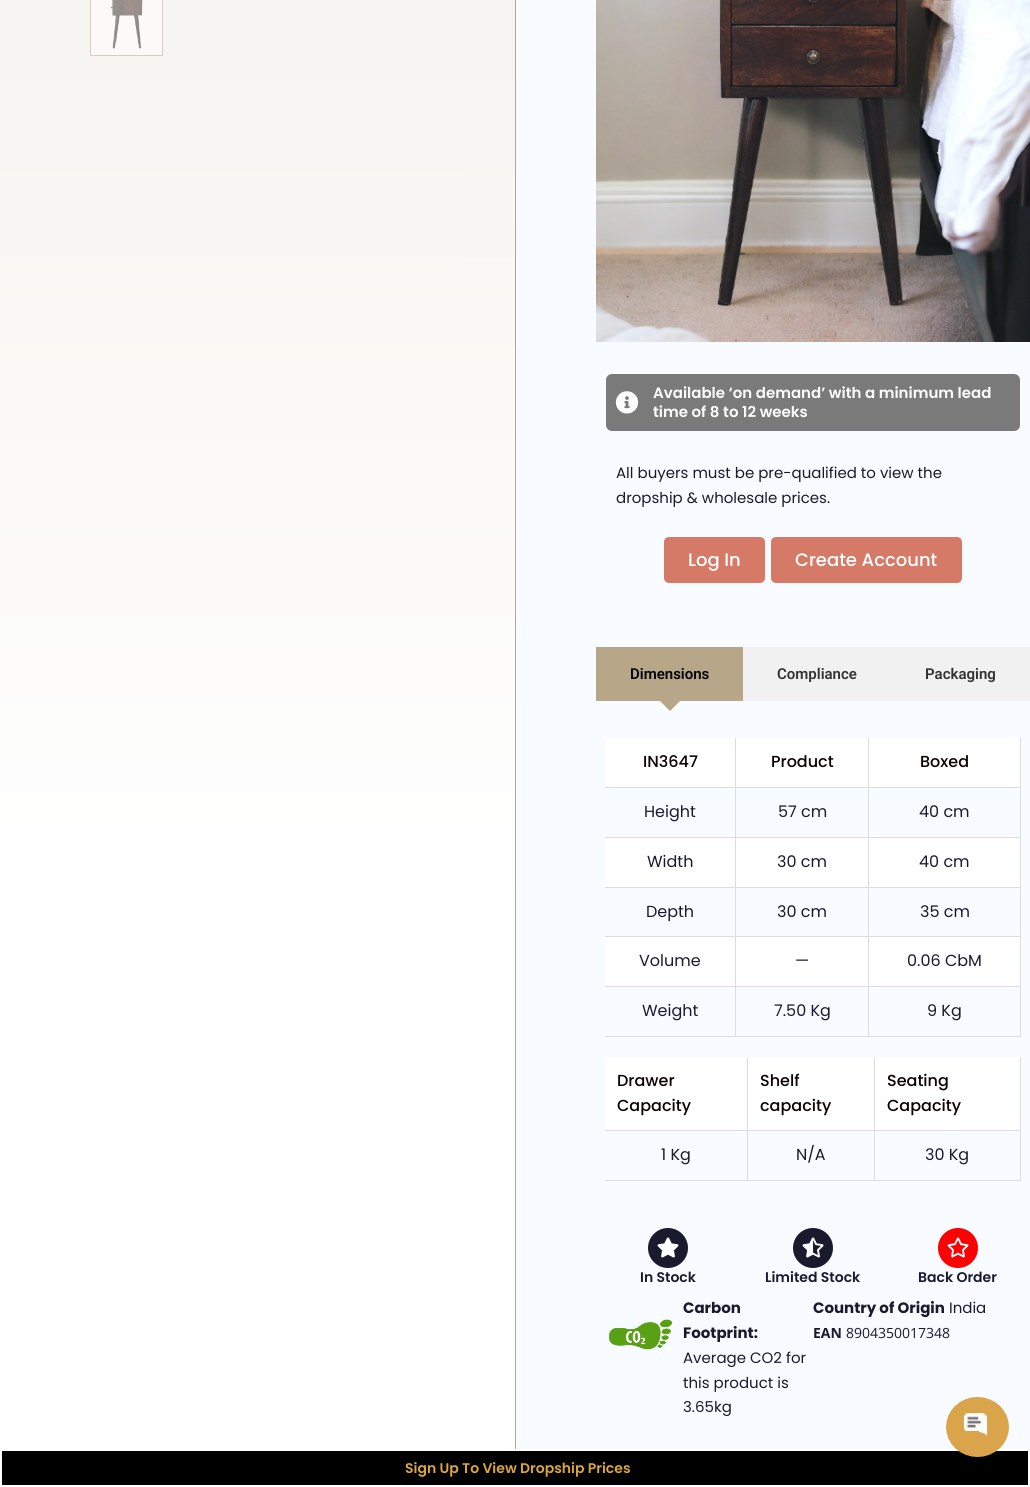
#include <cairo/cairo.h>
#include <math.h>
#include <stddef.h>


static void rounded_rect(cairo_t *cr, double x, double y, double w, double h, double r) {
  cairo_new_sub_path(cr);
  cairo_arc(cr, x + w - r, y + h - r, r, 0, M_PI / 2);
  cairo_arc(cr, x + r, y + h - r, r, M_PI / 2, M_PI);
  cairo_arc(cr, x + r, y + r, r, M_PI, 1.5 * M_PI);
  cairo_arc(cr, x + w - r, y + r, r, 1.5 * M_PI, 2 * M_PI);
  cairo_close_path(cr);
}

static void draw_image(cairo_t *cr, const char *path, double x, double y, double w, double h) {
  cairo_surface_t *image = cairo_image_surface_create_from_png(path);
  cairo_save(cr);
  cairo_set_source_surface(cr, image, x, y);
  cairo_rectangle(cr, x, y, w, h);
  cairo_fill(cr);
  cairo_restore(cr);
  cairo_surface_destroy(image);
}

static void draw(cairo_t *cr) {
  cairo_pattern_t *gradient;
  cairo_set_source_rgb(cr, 248 / 255.0, 251 / 255.0, 1);
  cairo_paint(cr);
  gradient = cairo_pattern_create_linear(257, -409, 258, 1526);
  cairo_pattern_add_color_stop_rgba(gradient, 0, 243 / 255.0, 240 / 255.0, 235 / 255.0, 1);
  cairo_pattern_add_color_stop_rgba(gradient, 0.69, 1, 1, 1, 1);
  cairo_set_source(cr, gradient);
  cairo_pattern_destroy(gradient);
  cairo_rectangle(cr, 0, 0, 515, 1449);
  cairo_fill(cr);
  cairo_rectangle(cr, 90.5, -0.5, 72, 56);
  cairo_set_source_rgb(cr, 215 / 255.0, 206 / 255.0, 189 / 255.0);
  cairo_set_line_width(cr, 1);
  cairo_stroke(cr);
  draw_image(cr, "images/1.png", 91, 0, 71, 55);
  cairo_set_source_rgb(cr, 183 / 255.0, 167 / 255.0, 136 / 255.0);
  cairo_rectangle(cr, 515, 0, 1, 1449);
  cairo_fill(cr);
  draw_image(cr, "images/2.png", 596, 0, 434, 342);
  cairo_set_source_rgb(cr, 122 / 255.0, 122 / 255.0, 122 / 255.0);
  rounded_rect(cr, 606, 374, 414, 57, 6);
  cairo_fill(cr);
  draw_image(cr, "images/3.png", 615, 391, 24, 23);
  cairo_set_source_rgb(cr, 213 / 255.0, 122 / 255.0, 102 / 255.0);
  rounded_rect(cr, 664, 537, 101, 46, 5);
  cairo_fill(cr);
  rounded_rect(cr, 771, 537, 191, 46, 5);
  cairo_fill(cr);
  cairo_set_source_rgb(cr, 183 / 255.0, 167 / 255.0, 136 / 255.0);
  cairo_rectangle(cr, 596, 647, 147, 54);
  cairo_fill(cr);
  cairo_new_path(cr);
  cairo_move_to(cr, 660, 701);
  cairo_line_to(cr, 680, 701);
  cairo_line_to(cr, 670, 711);
  cairo_close_path(cr);
  cairo_fill(cr);
  cairo_set_source_rgb(cr, 241 / 255.0, 241 / 255.0, 241 / 255.0);
  cairo_rectangle(cr, 743, 647, 287, 54);
  cairo_fill(cr);
  cairo_set_source_rgb(cr, 1, 1, 1);
  cairo_rectangle(cr, 605, 738, 130, 49);
  cairo_fill(cr);
  cairo_rectangle(cr, 605, 838, 415, 49);
  cairo_fill(cr);
  cairo_rectangle(cr, 605, 937, 415, 49);
  cairo_fill(cr);
  cairo_set_source_rgb(cr, 221 / 255.0, 221 / 255.0, 221 / 255.0);
  cairo_rectangle(cr, 1020, 738, 1, 299);
  cairo_fill(cr);
  cairo_rectangle(cr, 868, 1036, 153, 1);
  cairo_fill(cr);
  cairo_rectangle(cr, 868, 986, 1, 51);
  cairo_fill(cr);
  cairo_rectangle(cr, 868, 986, 153, 1);
  cairo_fill(cr);
  cairo_rectangle(cr, 868, 936, 1, 51);
  cairo_fill(cr);
  cairo_rectangle(cr, 868, 936, 153, 1);
  cairo_fill(cr);
  cairo_rectangle(cr, 868, 887, 1, 50);
  cairo_fill(cr);
  cairo_rectangle(cr, 868, 887, 153, 1);
  cairo_fill(cr);
  cairo_rectangle(cr, 868, 837, 1, 51);
  cairo_fill(cr);
  cairo_rectangle(cr, 868, 837, 153, 1);
  cairo_fill(cr);
  cairo_rectangle(cr, 868, 787, 1, 51);
  cairo_fill(cr);
  cairo_rectangle(cr, 868, 787, 153, 1);
  cairo_fill(cr);
  cairo_rectangle(cr, 868, 738, 1, 50);
  cairo_fill(cr);
  cairo_rectangle(cr, 735, 1036, 134, 1);
  cairo_fill(cr);
  cairo_rectangle(cr, 735, 986, 1, 51);
  cairo_fill(cr);
  cairo_rectangle(cr, 735, 986, 134, 1);
  cairo_fill(cr);
  cairo_rectangle(cr, 735, 936, 1, 51);
  cairo_fill(cr);
  cairo_rectangle(cr, 735, 936, 134, 1);
  cairo_fill(cr);
  cairo_rectangle(cr, 735, 887, 1, 50);
  cairo_fill(cr);
  cairo_rectangle(cr, 735, 887, 134, 1);
  cairo_fill(cr);
  cairo_rectangle(cr, 735, 837, 1, 51);
  cairo_fill(cr);
  cairo_rectangle(cr, 735, 837, 134, 1);
  cairo_fill(cr);
  cairo_rectangle(cr, 735, 787, 1, 51);
  cairo_fill(cr);
  cairo_rectangle(cr, 735, 787, 134, 1);
  cairo_fill(cr);
  cairo_rectangle(cr, 735, 738, 1, 50);
  cairo_fill(cr);
  cairo_rectangle(cr, 605, 787, 131, 1);
  cairo_fill(cr);
  cairo_set_source_rgb(cr, 1, 1, 1);
  cairo_rectangle(cr, 736, 738, 132, 49);
  cairo_fill(cr);
  cairo_rectangle(cr, 869, 738, 151, 49);
  cairo_fill(cr);
  cairo_set_source_rgb(cr, 221 / 255.0, 221 / 255.0, 221 / 255.0);
  cairo_rectangle(cr, 605, 837, 131, 1);
  cairo_fill(cr);
  cairo_rectangle(cr, 605, 887, 131, 1);
  cairo_fill(cr);
  cairo_rectangle(cr, 605, 936, 131, 1);
  cairo_fill(cr);
  cairo_rectangle(cr, 605, 986, 131, 1);
  cairo_fill(cr);
  cairo_rectangle(cr, 605, 1036, 131, 1);
  cairo_fill(cr);
  cairo_set_source_rgb(cr, 1, 1, 1);
  cairo_rectangle(cr, 605, 1057, 141, 73);
  cairo_fill(cr);
  cairo_set_source_rgb(cr, 221 / 255.0, 221 / 255.0, 221 / 255.0);
  cairo_rectangle(cr, 1020, 1057, 1, 124);
  cairo_fill(cr);
  cairo_rectangle(cr, 874, 1180, 147, 1);
  cairo_fill(cr);
  cairo_rectangle(cr, 874, 1130, 1, 51);
  cairo_fill(cr);
  cairo_rectangle(cr, 874, 1130, 147, 1);
  cairo_fill(cr);
  cairo_rectangle(cr, 874, 1057, 1, 74);
  cairo_fill(cr);
  cairo_rectangle(cr, 747, 1180, 128, 1);
  cairo_fill(cr);
  cairo_rectangle(cr, 747, 1130, 1, 51);
  cairo_fill(cr);
  cairo_rectangle(cr, 747, 1130, 128, 1);
  cairo_fill(cr);
  cairo_rectangle(cr, 747, 1057, 1, 74);
  cairo_fill(cr);
  cairo_rectangle(cr, 605, 1130, 143, 1);
  cairo_fill(cr);
  cairo_set_source_rgb(cr, 1, 1, 1);
  cairo_rectangle(cr, 748, 1057, 126, 73);
  cairo_fill(cr);
  cairo_rectangle(cr, 875, 1057, 145, 73);
  cairo_fill(cr);
  cairo_set_source_rgb(cr, 221 / 255.0, 221 / 255.0, 221 / 255.0);
  cairo_rectangle(cr, 605, 1180, 143, 1);
  cairo_fill(cr);
  cairo_set_source_rgb(cr, 26 / 255.0, 26 / 255.0, 46 / 255.0);
  cairo_arc(cr, 668, 1248, 20, 0, 2 * M_PI);
  cairo_fill(cr);
  draw_image(cr, "images/4.png", 657, 1237, 22, 21);
  cairo_arc(cr, 813, 1248, 20, 0, 2 * M_PI);
  cairo_fill(cr);
  draw_image(cr, "images/5.png", 802, 1237, 22, 21);
  cairo_set_source_rgb(cr, 1, 0, 0);
  cairo_arc(cr, 958, 1248, 20, 0, 2 * M_PI);
  cairo_fill(cr);
  draw_image(cr, "images/6.png", 947, 1237, 22, 21);
  draw_image(cr, "images/7.png", 609, 1319, 64, 31);
  cairo_set_source_rgb(cr, 1, 1, 1);
  cairo_rectangle(cr, 0, 1449, 1030, 38);
  cairo_fill(cr);
  cairo_set_source_rgb(cr, 0, 0, 0);
  cairo_rectangle(cr, 2, 1451, 1026, 34);
  cairo_fill(cr);
  draw_image(cr, "images/8.png", 946, 1397, 63, 60);
  cairo_select_font_face(cr, "Poppins SemiBold", CAIRO_FONT_SLANT_NORMAL, CAIRO_FONT_WEIGHT_NORMAL);
  cairo_set_font_size(cr, 15);
  cairo_set_source_rgb(cr, 1, 1, 1);
  cairo_move_to(cr, 653, 398);
  cairo_show_text(cr, "Available ‘on demand’ with a minimum lead");
  cairo_move_to(cr, 653, 417);
  cairo_show_text(cr, "time of 8 to 12 weeks");
  cairo_select_font_face(cr, "Poppins", CAIRO_FONT_SLANT_NORMAL, CAIRO_FONT_WEIGHT_NORMAL);
  cairo_set_source_rgb(cr, 26 / 255.0, 26 / 255.0, 46 / 255.0);
  cairo_move_to(cr, 616, 478);
  cairo_show_text(cr, "All buyers must be pre-qualified to view the");
  cairo_move_to(cr, 616, 503);
  cairo_show_text(cr, "dropship & wholesale prices.");
  cairo_select_font_face(cr, "Poppins Medium", CAIRO_FONT_SLANT_NORMAL, CAIRO_FONT_WEIGHT_NORMAL);
  cairo_set_font_size(cr, 18);
  cairo_set_source_rgb(cr, 1, 1, 1);
  cairo_move_to(cr, 688, 566);
  cairo_show_text(cr, "Log In");
  cairo_move_to(cr, 795, 566);
  cairo_show_text(cr, "Create Account");
  cairo_select_font_face(cr, "Roboto SemiBold", CAIRO_FONT_SLANT_NORMAL, CAIRO_FONT_WEIGHT_NORMAL);
  cairo_set_font_size(cr, 15);
  cairo_set_source_rgb(cr, 0, 0, 0);
  cairo_move_to(cr, 630, 679);
  cairo_show_text(cr, "Dimensions");
  cairo_set_source_rgb(cr, 51 / 255.0, 51 / 255.0, 51 / 255.0);
  cairo_move_to(cr, 777, 679);
  cairo_show_text(cr, "Compliance");
  cairo_move_to(cr, 925, 679);
  cairo_show_text(cr, "Packaging");
  cairo_select_font_face(cr, "Poppins Medium", CAIRO_FONT_SLANT_NORMAL, CAIRO_FONT_WEIGHT_NORMAL);
  cairo_set_font_size(cr, 16);
  cairo_set_source_rgb(cr, 10 / 255.0, 0, 0);
  cairo_move_to(cr, 643, 767);
  cairo_show_text(cr, "IN3647");
  cairo_move_to(cr, 771, 767);
  cairo_show_text(cr, "Product");
  cairo_move_to(cr, 920, 767);
  cairo_show_text(cr, "Boxed");
  cairo_select_font_face(cr, "Poppins", CAIRO_FONT_SLANT_NORMAL, CAIRO_FONT_WEIGHT_NORMAL);
  cairo_set_source_rgb(cr, 26 / 255.0, 26 / 255.0, 46 / 255.0);
  cairo_move_to(cr, 644, 817);
  cairo_show_text(cr, "Height");
  cairo_move_to(cr, 778, 817);
  cairo_show_text(cr, "57 cm");
  cairo_move_to(cr, 919, 817);
  cairo_show_text(cr, "40 cm");
  cairo_move_to(cr, 647, 867);
  cairo_show_text(cr, "Width");
  cairo_move_to(cr, 777, 867);
  cairo_show_text(cr, "30 cm");
  cairo_move_to(cr, 919, 867);
  cairo_show_text(cr, "40 cm");
  cairo_move_to(cr, 646, 917);
  cairo_show_text(cr, "Depth");
  cairo_move_to(cr, 777, 917);
  cairo_show_text(cr, "30 cm");
  cairo_move_to(cr, 920, 917);
  cairo_show_text(cr, "35 cm");
  cairo_move_to(cr, 639, 966);
  cairo_show_text(cr, "Volume");
  cairo_move_to(cr, 795, 966);
  cairo_show_text(cr, "—");
  cairo_move_to(cr, 907, 966);
  cairo_show_text(cr, "0.06 CbM");
  cairo_move_to(cr, 642, 1016);
  cairo_show_text(cr, "Weight");
  cairo_move_to(cr, 774, 1016);
  cairo_show_text(cr, "7.50 Kg");
  cairo_move_to(cr, 927, 1016);
  cairo_show_text(cr, "9 Kg");
  cairo_select_font_face(cr, "Poppins Medium", CAIRO_FONT_SLANT_NORMAL, CAIRO_FONT_WEIGHT_NORMAL);
  cairo_set_source_rgb(cr, 10 / 255.0, 0, 0);
  cairo_move_to(cr, 617, 1086);
  cairo_show_text(cr, "Drawer");
  cairo_move_to(cr, 617, 1111);
  cairo_show_text(cr, "Capacity");
  cairo_move_to(cr, 760, 1086);
  cairo_show_text(cr, "Shelf");
  cairo_move_to(cr, 760, 1111);
  cairo_show_text(cr, "capacity");
  cairo_move_to(cr, 887, 1086);
  cairo_show_text(cr, "Seating");
  cairo_move_to(cr, 887, 1111);
  cairo_show_text(cr, "Capacity");
  cairo_select_font_face(cr, "Poppins", CAIRO_FONT_SLANT_NORMAL, CAIRO_FONT_WEIGHT_NORMAL);
  cairo_set_source_rgb(cr, 26 / 255.0, 26 / 255.0, 46 / 255.0);
  cairo_move_to(cr, 661, 1160);
  cairo_show_text(cr, "1 Kg");
  cairo_move_to(cr, 796, 1160);
  cairo_show_text(cr, "N/A");
  cairo_move_to(cr, 925, 1160);
  cairo_show_text(cr, "30 Kg");
  cairo_select_font_face(cr, "Poppins SemiBold", CAIRO_FONT_SLANT_NORMAL, CAIRO_FONT_WEIGHT_NORMAL);
  cairo_set_font_size(cr, 14);
  cairo_move_to(cr, 640, 1282);
  cairo_show_text(cr, "In Stock");
  cairo_move_to(cr, 765, 1282);
  cairo_show_text(cr, "Limited Stock");
  cairo_move_to(cr, 918, 1282);
  cairo_show_text(cr, "Back Order");
  cairo_select_font_face(cr, "Poppins", CAIRO_FONT_SLANT_NORMAL, CAIRO_FONT_WEIGHT_BOLD);
  cairo_set_font_size(cr, 15);
  cairo_move_to(cr, 683, 1313);
  cairo_show_text(cr, "Carbon");
  cairo_move_to(cr, 683, 1338);
  cairo_show_text(cr, "Footprint:");
  cairo_select_font_face(cr, "Poppins", CAIRO_FONT_SLANT_NORMAL, CAIRO_FONT_WEIGHT_NORMAL);
  cairo_move_to(cr, 683, 1363);
  cairo_show_text(cr, "Average CO2 for");
  cairo_move_to(cr, 683, 1388);
  cairo_show_text(cr, "this product is");
  cairo_move_to(cr, 683, 1412);
  cairo_show_text(cr, "3.65kg");
  cairo_select_font_face(cr, "Poppins", CAIRO_FONT_SLANT_NORMAL, CAIRO_FONT_WEIGHT_BOLD);
  cairo_move_to(cr, 813, 1313);
  cairo_show_text(cr, "Country of Origin");
  cairo_select_font_face(cr, "Poppins", CAIRO_FONT_SLANT_NORMAL, CAIRO_FONT_WEIGHT_NORMAL);
  cairo_move_to(cr, 949, 1313);
  cairo_show_text(cr, "India");
  cairo_select_font_face(cr, "Open Sans", CAIRO_FONT_SLANT_NORMAL, CAIRO_FONT_WEIGHT_BOLD);
  cairo_set_font_size(cr, 14);
  cairo_move_to(cr, 813, 1338);
  cairo_show_text(cr, "EAN");
  cairo_select_font_face(cr, "Open Sans", CAIRO_FONT_SLANT_NORMAL, CAIRO_FONT_WEIGHT_NORMAL);
  cairo_move_to(cr, 846, 1338);
  cairo_show_text(cr, "8904350017348");
  cairo_select_font_face(cr, "Poppins SemiBold", CAIRO_FONT_SLANT_NORMAL, CAIRO_FONT_WEIGHT_NORMAL);
  cairo_set_source_rgb(cr, 219 / 255.0, 167 / 255.0, 60 / 255.0);
  cairo_move_to(cr, 405, 1473);
  cairo_show_text(cr, "Sign Up To View Dropship Prices");
}

int main(void) {
  cairo_surface_t *surface = cairo_image_surface_create(CAIRO_FORMAT_RGB24, 1030, 1487);
  cairo_t *cr = cairo_create(surface);
  cairo_font_options_t *options = cairo_font_options_create();
  cairo_font_options_set_hint_metrics(options, CAIRO_HINT_METRICS_OFF);
  cairo_font_options_set_hint_style(options, CAIRO_HINT_STYLE_NONE);
  cairo_set_font_options(cr, options);
  cairo_set_miter_limit(cr, 4);
  draw(cr);
  cairo_surface_write_to_png(surface, "out.png");
  cairo_font_options_destroy(options);
  cairo_destroy(cr);
  cairo_surface_destroy(surface);
  return 0;
}
